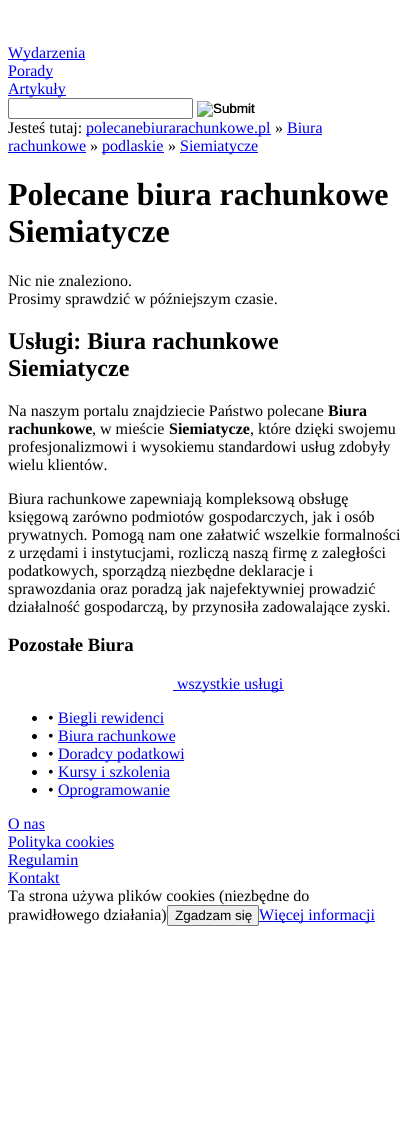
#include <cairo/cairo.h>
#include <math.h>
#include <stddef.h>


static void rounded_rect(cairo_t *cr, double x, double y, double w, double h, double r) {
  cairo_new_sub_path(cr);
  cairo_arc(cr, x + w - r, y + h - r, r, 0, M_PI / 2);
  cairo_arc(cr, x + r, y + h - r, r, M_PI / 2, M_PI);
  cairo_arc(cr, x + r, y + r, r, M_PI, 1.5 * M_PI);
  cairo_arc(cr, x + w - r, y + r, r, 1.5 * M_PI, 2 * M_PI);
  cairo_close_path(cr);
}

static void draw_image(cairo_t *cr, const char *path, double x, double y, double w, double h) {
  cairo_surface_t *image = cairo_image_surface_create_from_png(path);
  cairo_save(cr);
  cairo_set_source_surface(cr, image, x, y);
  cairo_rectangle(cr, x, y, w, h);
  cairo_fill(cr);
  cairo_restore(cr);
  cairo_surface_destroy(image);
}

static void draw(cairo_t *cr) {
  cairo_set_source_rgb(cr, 1, 1, 1);
  cairo_paint(cr);
  cairo_set_source_rgb(cr, 0, 0, 238 / 255.0);
  cairo_rectangle(cr, 8, 59, 77, 1);
  cairo_fill(cr);
  cairo_rectangle(cr, 8, 77, 45, 1);
  cairo_fill(cr);
  cairo_rectangle(cr, 8, 95, 58, 1);
  cairo_fill(cr);
  rounded_rect(cr, 8.5, 98.5, 184, 20, 1.5);
  cairo_set_source_rgb(cr, 118 / 255.0, 118 / 255.0, 118 / 255.0);
  cairo_set_line_width(cr, 1);
  cairo_stroke(cr);
  draw_image(cr, "images/1.png", 197, 101, 57, 16);
  cairo_set_source_rgb(cr, 0, 0, 238 / 255.0);
  cairo_rectangle(cr, 86, 134, 185, 1);
  cairo_fill(cr);
  cairo_rectangle(cr, 287, 134, 35, 1);
  cairo_fill(cr);
  cairo_rectangle(cr, 8, 152, 78, 1);
  cairo_fill(cr);
  cairo_rectangle(cr, 102, 152, 62, 1);
  cairo_fill(cr);
  cairo_rectangle(cr, 180, 152, 78, 1);
  cairo_fill(cr);
  cairo_rectangle(cr, 173, 690, 111, 1);
  cairo_fill(cr);
  cairo_set_source_rgb(cr, 0, 0, 0);
  cairo_arc(cr, 34.5, 718.5, 2.5, 0, 2 * M_PI);
  cairo_fill(cr);
  cairo_set_source_rgb(cr, 0, 0, 238 / 255.0);
  cairo_rectangle(cr, 58, 724, 106, 1);
  cairo_fill(cr);
  cairo_set_source_rgb(cr, 0, 0, 0);
  cairo_arc(cr, 34.5, 736.5, 2.5, 0, 2 * M_PI);
  cairo_fill(cr);
  cairo_set_source_rgb(cr, 0, 0, 238 / 255.0);
  cairo_rectangle(cr, 58, 742, 117, 1);
  cairo_fill(cr);
  cairo_set_source_rgb(cr, 0, 0, 0);
  cairo_arc(cr, 34.5, 754.5, 2.5, 0, 2 * M_PI);
  cairo_fill(cr);
  cairo_set_source_rgb(cr, 0, 0, 238 / 255.0);
  cairo_rectangle(cr, 58, 760, 126, 1);
  cairo_fill(cr);
  cairo_set_source_rgb(cr, 0, 0, 0);
  cairo_arc(cr, 34.5, 772.5, 2.5, 0, 2 * M_PI);
  cairo_fill(cr);
  cairo_set_source_rgb(cr, 0, 0, 238 / 255.0);
  cairo_rectangle(cr, 58, 778, 112, 1);
  cairo_fill(cr);
  cairo_set_source_rgb(cr, 0, 0, 0);
  cairo_arc(cr, 34.5, 790.5, 2.5, 0, 2 * M_PI);
  cairo_fill(cr);
  cairo_set_source_rgb(cr, 0, 0, 238 / 255.0);
  cairo_rectangle(cr, 58, 796, 112, 1);
  cairo_fill(cr);
  cairo_rectangle(cr, 8, 830, 37, 1);
  cairo_fill(cr);
  cairo_rectangle(cr, 8, 848, 106, 1);
  cairo_fill(cr);
  cairo_rectangle(cr, 8, 866, 70, 1);
  cairo_fill(cr);
  cairo_rectangle(cr, 8, 884, 52, 1);
  cairo_fill(cr);
  cairo_set_source_rgb(cr, 239 / 255.0, 239 / 255.0, 239 / 255.0);
  rounded_rect(cr, 167.5, 905.5, 91, 20, 1.5);
  cairo_fill_preserve(cr);
  cairo_set_source_rgb(cr, 118 / 255.0, 118 / 255.0, 118 / 255.0);
  cairo_stroke(cr);
  cairo_set_source_rgb(cr, 0, 0, 238 / 255.0);
  cairo_rectangle(cr, 259, 921, 116, 1);
  cairo_fill(cr);
  cairo_select_font_face(cr, "Liberation Serif", CAIRO_FONT_SLANT_NORMAL, CAIRO_FONT_WEIGHT_NORMAL);
  cairo_set_font_size(cr, 16);
  cairo_move_to(cr, 8, 58);
  cairo_show_text(cr, "Wydarzenia");
  cairo_move_to(cr, 8, 76);
  cairo_show_text(cr, "Porady");
  cairo_move_to(cr, 8, 94);
  cairo_show_text(cr, "Artykuły");
  cairo_select_font_face(cr, "Liberation Sans", CAIRO_FONT_SLANT_NORMAL, CAIRO_FONT_WEIGHT_NORMAL);
  cairo_set_font_size(cr, 13.5);
  cairo_set_source_rgb(cr, 0, 0, 0);
  cairo_move_to(cr, 213, 113);
  cairo_show_text(cr, "Submit");
  cairo_select_font_face(cr, "Liberation Serif", CAIRO_FONT_SLANT_NORMAL, CAIRO_FONT_WEIGHT_NORMAL);
  cairo_set_font_size(cr, 16);
  cairo_move_to(cr, 8, 133);
  cairo_show_text(cr, "Jesteś tutaj:");
  cairo_set_source_rgb(cr, 0, 0, 238 / 255.0);
  cairo_move_to(cr, 86, 133);
  cairo_show_text(cr, "polecanebiurarachunkowe.pl");
  cairo_set_source_rgb(cr, 0, 0, 0);
  cairo_move_to(cr, 275, 133);
  cairo_show_text(cr, "»");
  cairo_set_source_rgb(cr, 0, 0, 238 / 255.0);
  cairo_move_to(cr, 287, 133);
  cairo_show_text(cr, "Biura");
  cairo_move_to(cr, 8, 151);
  cairo_show_text(cr, "rachunkowe");
  cairo_set_source_rgb(cr, 0, 0, 0);
  cairo_move_to(cr, 90, 151);
  cairo_show_text(cr, "»");
  cairo_set_source_rgb(cr, 0, 0, 238 / 255.0);
  cairo_move_to(cr, 102, 151);
  cairo_show_text(cr, "podlaskie");
  cairo_set_source_rgb(cr, 0, 0, 0);
  cairo_move_to(cr, 168, 151);
  cairo_show_text(cr, "»");
  cairo_set_source_rgb(cr, 0, 0, 238 / 255.0);
  cairo_move_to(cr, 180, 151);
  cairo_show_text(cr, "Siemiatycze");
  cairo_select_font_face(cr, "Liberation Serif", CAIRO_FONT_SLANT_NORMAL, CAIRO_FONT_WEIGHT_BOLD);
  cairo_set_font_size(cr, 32);
  cairo_set_source_rgb(cr, 0, 0, 0);
  cairo_move_to(cr, 8, 205);
  cairo_show_text(cr, "Polecane biura rachunkowe");
  cairo_move_to(cr, 8, 242);
  cairo_show_text(cr, "Siemiatycze");
  cairo_select_font_face(cr, "Liberation Serif", CAIRO_FONT_SLANT_NORMAL, CAIRO_FONT_WEIGHT_NORMAL);
  cairo_set_font_size(cr, 16);
  cairo_move_to(cr, 8, 286);
  cairo_show_text(cr, "Nic nie znaleziono.");
  cairo_move_to(cr, 8, 304);
  cairo_show_text(cr, "Prosimy sprawdzić w późniejszym czasie.");
  cairo_select_font_face(cr, "Liberation Serif", CAIRO_FONT_SLANT_NORMAL, CAIRO_FONT_WEIGHT_BOLD);
  cairo_set_font_size(cr, 24);
  cairo_move_to(cr, 8, 349);
  cairo_show_text(cr, "Usługi: Biura rachunkowe");
  cairo_move_to(cr, 8, 376);
  cairo_show_text(cr, "Siemiatycze");
  cairo_select_font_face(cr, "Liberation Serif", CAIRO_FONT_SLANT_NORMAL, CAIRO_FONT_WEIGHT_NORMAL);
  cairo_set_font_size(cr, 16);
  cairo_move_to(cr, 8, 416);
  cairo_show_text(cr, "Na naszym portalu znajdziecie Państwo polecane");
  cairo_select_font_face(cr, "Liberation Serif", CAIRO_FONT_SLANT_NORMAL, CAIRO_FONT_WEIGHT_BOLD);
  cairo_move_to(cr, 328, 416);
  cairo_show_text(cr, "Biura");
  cairo_move_to(cr, 8, 434);
  cairo_show_text(cr, "rachunkowe");
  cairo_select_font_face(cr, "Liberation Serif", CAIRO_FONT_SLANT_NORMAL, CAIRO_FONT_WEIGHT_NORMAL);
  cairo_move_to(cr, 92, 434);
  cairo_show_text(cr, ", w mieście");
  cairo_select_font_face(cr, "Liberation Serif", CAIRO_FONT_SLANT_NORMAL, CAIRO_FONT_WEIGHT_BOLD);
  cairo_move_to(cr, 169, 434);
  cairo_show_text(cr, "Siemiatycze");
  cairo_select_font_face(cr, "Liberation Serif", CAIRO_FONT_SLANT_NORMAL, CAIRO_FONT_WEIGHT_NORMAL);
  cairo_move_to(cr, 250, 434);
  cairo_show_text(cr, ", które dzięki swojemu");
  cairo_move_to(cr, 8, 452);
  cairo_show_text(cr, "profesjonalizmowi i wysokiemu standardowi usług zdobyły");
  cairo_move_to(cr, 8, 470);
  cairo_show_text(cr, "wielu klientów.");
  cairo_move_to(cr, 8, 504);
  cairo_show_text(cr, "Biura rachunkowe zapewniają kompleksową obsługę");
  cairo_move_to(cr, 8, 522);
  cairo_show_text(cr, "księgową zarówno podmiotów gospodarczych, jak i osób");
  cairo_move_to(cr, 8, 540);
  cairo_show_text(cr, "prywatnych. Pomogą nam one załatwić wszelkie formalności");
  cairo_move_to(cr, 8, 558);
  cairo_show_text(cr, "z urzędami i instytucjami, rozliczą naszą firmę z zaległości");
  cairo_move_to(cr, 8, 576);
  cairo_show_text(cr, "podatkowych, sporządzą niezbędne deklaracje i");
  cairo_move_to(cr, 8, 594);
  cairo_show_text(cr, "sprawozdania oraz poradzą jak najefektywniej prowadzić");
  cairo_move_to(cr, 8, 612);
  cairo_show_text(cr, "działalność gospodarczą, by przynosiła zadowalające zyski.");
  cairo_select_font_face(cr, "Liberation Serif", CAIRO_FONT_SLANT_NORMAL, CAIRO_FONT_WEIGHT_BOLD);
  cairo_set_font_size(cr, 18.75);
  cairo_move_to(cr, 8, 651);
  cairo_show_text(cr, "Pozostałe Biura");
  cairo_select_font_face(cr, "Liberation Serif", CAIRO_FONT_SLANT_NORMAL, CAIRO_FONT_WEIGHT_NORMAL);
  cairo_set_font_size(cr, 16);
  cairo_set_source_rgb(cr, 0, 0, 238 / 255.0);
  cairo_move_to(cr, 177, 689);
  cairo_show_text(cr, "wszystkie usługi");
  cairo_set_source_rgb(cr, 0, 0, 0);
  cairo_move_to(cr, 48, 723);
  cairo_show_text(cr, "•");
  cairo_set_source_rgb(cr, 0, 0, 238 / 255.0);
  cairo_move_to(cr, 58, 723);
  cairo_show_text(cr, "Biegli rewidenci");
  cairo_set_source_rgb(cr, 0, 0, 0);
  cairo_move_to(cr, 48, 741);
  cairo_show_text(cr, "•");
  cairo_set_source_rgb(cr, 0, 0, 238 / 255.0);
  cairo_move_to(cr, 58, 741);
  cairo_show_text(cr, "Biura rachunkowe");
  cairo_set_source_rgb(cr, 0, 0, 0);
  cairo_move_to(cr, 48, 759);
  cairo_show_text(cr, "•");
  cairo_set_source_rgb(cr, 0, 0, 238 / 255.0);
  cairo_move_to(cr, 58, 759);
  cairo_show_text(cr, "Doradcy podatkowi");
  cairo_set_source_rgb(cr, 0, 0, 0);
  cairo_move_to(cr, 48, 777);
  cairo_show_text(cr, "•");
  cairo_set_source_rgb(cr, 0, 0, 238 / 255.0);
  cairo_move_to(cr, 58, 777);
  cairo_show_text(cr, "Kursy i szkolenia");
  cairo_set_source_rgb(cr, 0, 0, 0);
  cairo_move_to(cr, 48, 795);
  cairo_show_text(cr, "•");
  cairo_set_source_rgb(cr, 0, 0, 238 / 255.0);
  cairo_move_to(cr, 58, 795);
  cairo_show_text(cr, "Oprogramowanie");
  cairo_move_to(cr, 8, 829);
  cairo_show_text(cr, "O nas");
  cairo_move_to(cr, 8, 847);
  cairo_show_text(cr, "Polityka cookies");
  cairo_move_to(cr, 8, 865);
  cairo_show_text(cr, "Regulamin");
  cairo_move_to(cr, 8, 883);
  cairo_show_text(cr, "Kontakt");
  cairo_set_source_rgb(cr, 0, 0, 0);
  cairo_move_to(cr, 8, 901);
  cairo_show_text(cr, "Ta strona używa plików cookies (niezbędne do");
  cairo_move_to(cr, 8, 920);
  cairo_show_text(cr, "prawidłowego działania)");
  cairo_select_font_face(cr, "Liberation Sans", CAIRO_FONT_SLANT_NORMAL, CAIRO_FONT_WEIGHT_NORMAL);
  cairo_set_font_size(cr, 13.5);
  cairo_move_to(cr, 175, 920);
  cairo_show_text(cr, "Zgadzam się");
  cairo_select_font_face(cr, "Liberation Serif", CAIRO_FONT_SLANT_NORMAL, CAIRO_FONT_WEIGHT_NORMAL);
  cairo_set_font_size(cr, 16);
  cairo_set_source_rgb(cr, 0, 0, 238 / 255.0);
  cairo_move_to(cr, 259, 920);
  cairo_show_text(cr, "Więcej informacji");
}

int main(void) {
  cairo_surface_t *surface = cairo_image_surface_create(CAIRO_FORMAT_RGB24, 410, 1129);
  cairo_t *cr = cairo_create(surface);
  cairo_font_options_t *options = cairo_font_options_create();
  cairo_font_options_set_hint_metrics(options, CAIRO_HINT_METRICS_OFF);
  cairo_font_options_set_hint_style(options, CAIRO_HINT_STYLE_NONE);
  cairo_set_font_options(cr, options);
  cairo_set_miter_limit(cr, 4);
  draw(cr);
  cairo_surface_write_to_png(surface, "out.png");
  cairo_font_options_destroy(options);
  cairo_destroy(cr);
  cairo_surface_destroy(surface);
  return 0;
}
